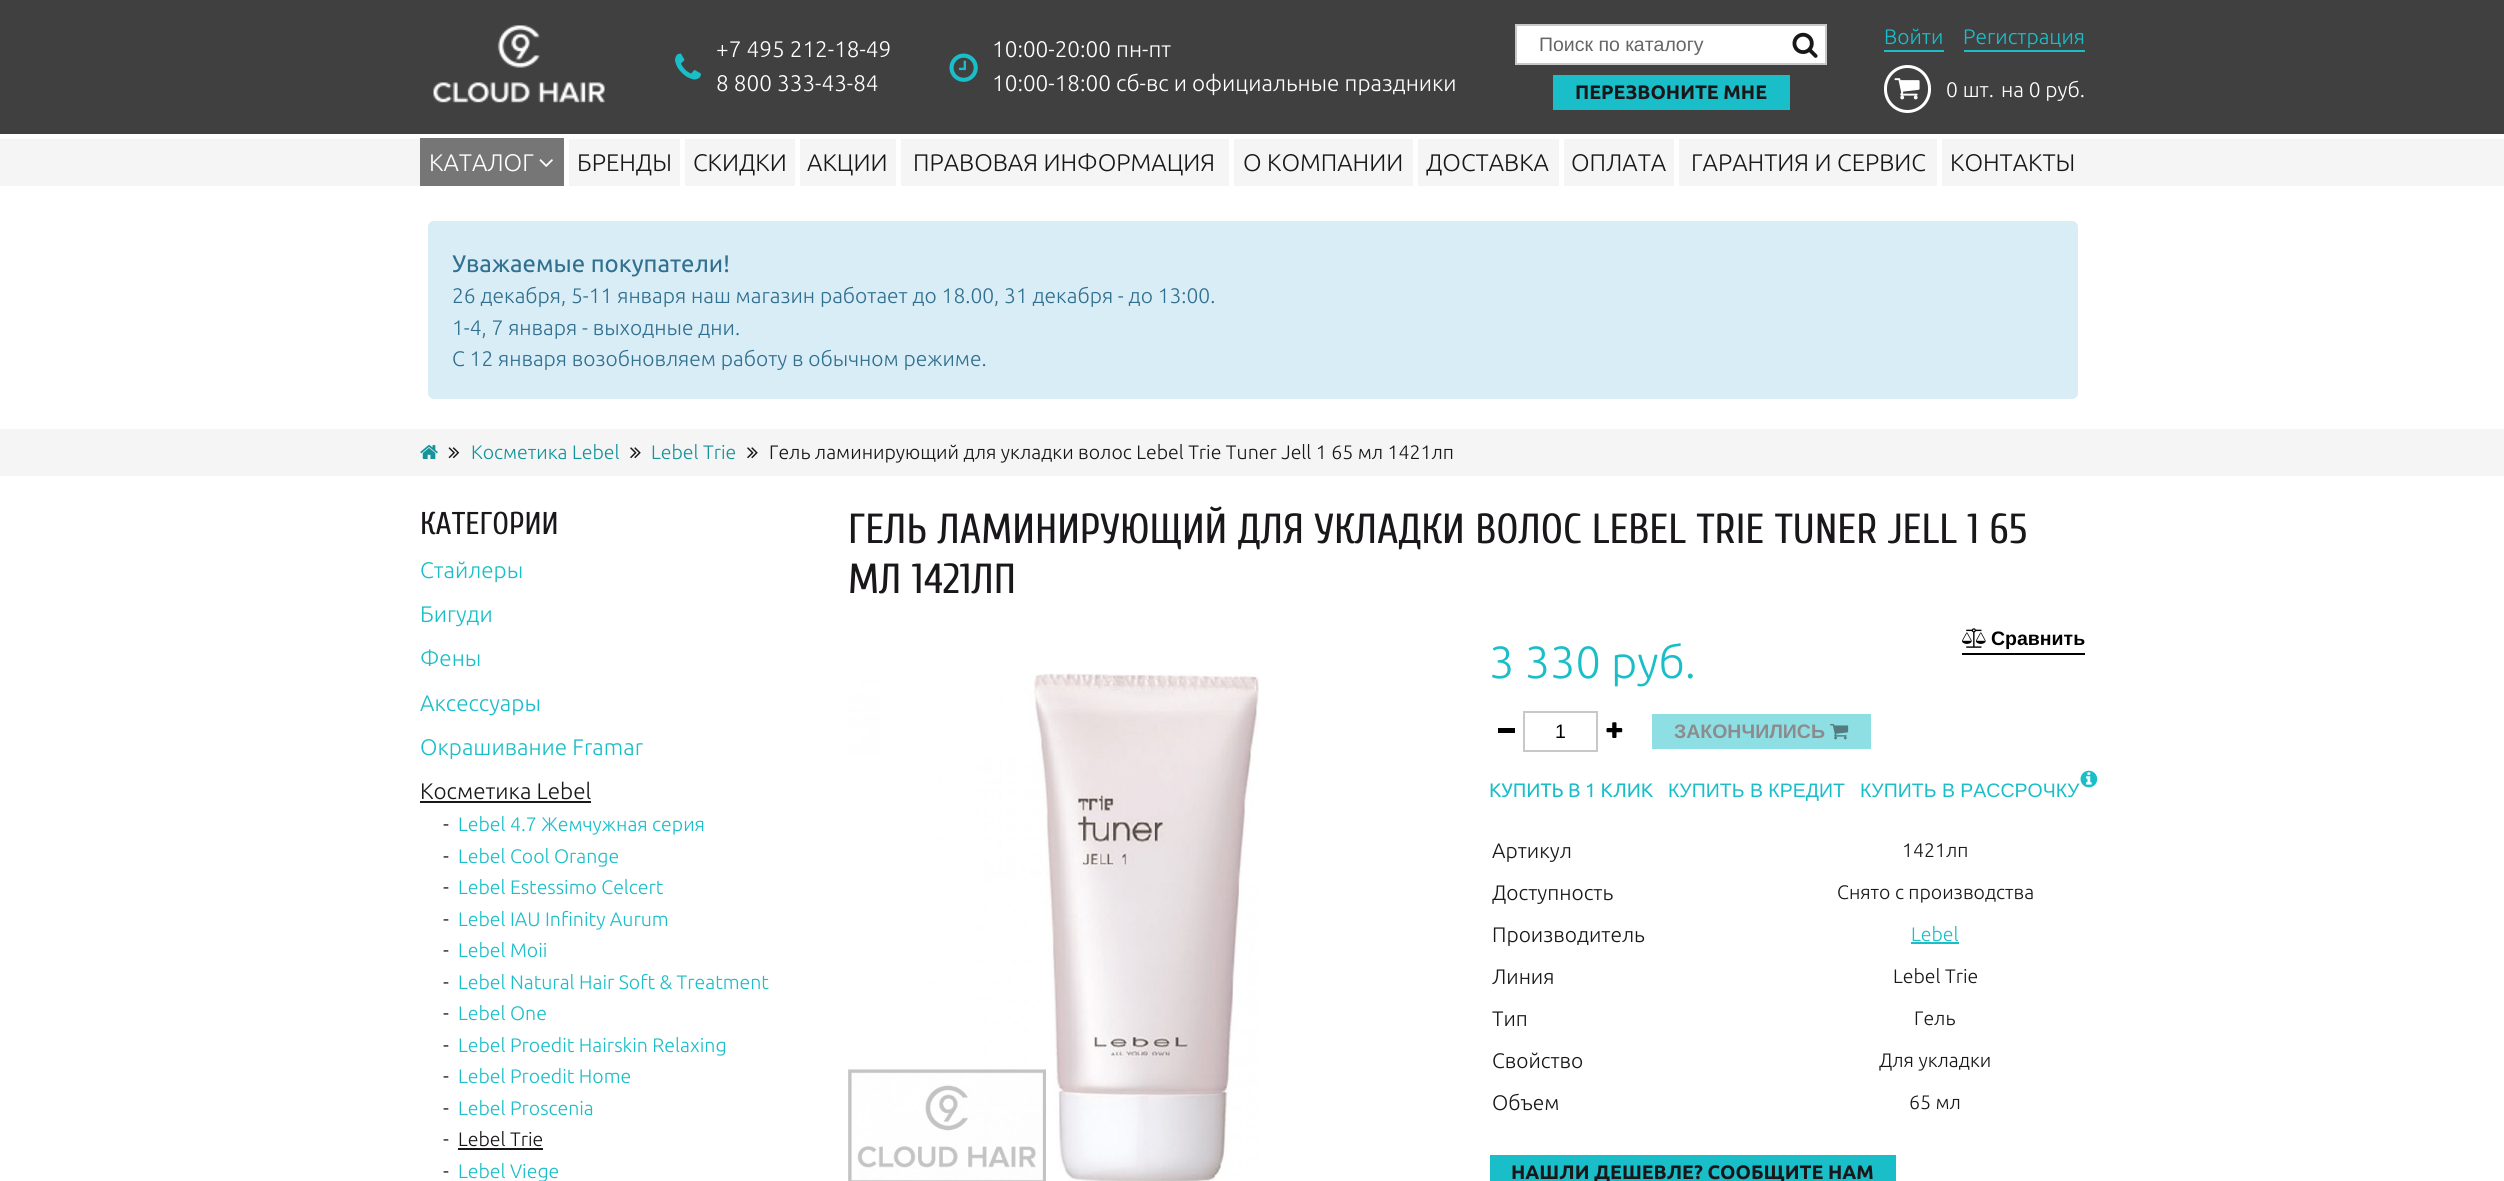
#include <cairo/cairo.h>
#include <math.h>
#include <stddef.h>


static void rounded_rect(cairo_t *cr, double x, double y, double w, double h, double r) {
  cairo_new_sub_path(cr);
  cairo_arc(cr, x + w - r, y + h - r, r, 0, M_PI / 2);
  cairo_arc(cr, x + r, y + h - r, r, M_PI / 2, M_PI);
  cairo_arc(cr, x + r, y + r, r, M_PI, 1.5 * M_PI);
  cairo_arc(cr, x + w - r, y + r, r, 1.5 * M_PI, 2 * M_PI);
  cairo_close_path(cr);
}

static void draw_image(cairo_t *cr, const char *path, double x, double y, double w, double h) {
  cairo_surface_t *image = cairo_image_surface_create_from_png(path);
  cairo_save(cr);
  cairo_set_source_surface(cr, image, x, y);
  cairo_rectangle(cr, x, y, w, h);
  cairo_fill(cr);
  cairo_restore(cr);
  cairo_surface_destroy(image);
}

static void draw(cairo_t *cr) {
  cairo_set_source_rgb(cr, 1, 1, 1);
  cairo_paint(cr);
  cairo_set_source_rgb(cr, 64 / 255.0, 64 / 255.0, 64 / 255.0);
  cairo_rectangle(cr, 0, 0, 2504, 134);
  cairo_fill(cr);
  draw_image(cr, "images/1.png", 433, 25, 172, 78);
  draw_image(cr, "images/2.png", 675, 53, 26, 27);
  draw_image(cr, "images/3.png", 949, 53, 29, 29);
  cairo_set_source_rgb(cr, 1, 1, 1);
  cairo_rectangle(cr, 1516, 25, 310, 39);
  cairo_fill_preserve(cr);
  cairo_set_source_rgb(cr, 200 / 255.0, 200 / 255.0, 200 / 255.0);
  cairo_stroke(cr);
  draw_image(cr, "images/4.png", 1792, 32, 26, 26);
  cairo_set_source_rgb(cr, 26 / 255.0, 190 / 255.0, 200 / 255.0);
  cairo_rectangle(cr, 1553, 75, 237, 35);
  cairo_fill(cr);
  cairo_rectangle(cr, 1884, 50, 60, 2);
  cairo_fill(cr);
  cairo_rectangle(cr, 1964, 50, 121, 2);
  cairo_fill(cr);
  rounded_rect(cr, 1885.5, 66.5, 44, 45, 22);
  cairo_set_source_rgb(cr, 1, 1, 1);
  cairo_set_line_width(cr, 3);
  cairo_stroke(cr);
  draw_image(cr, "images/5.png", 1894, 78, 26, 22);
  cairo_set_source_rgb(cr, 245 / 255.0, 245 / 255.0, 245 / 255.0);
  cairo_rectangle(cr, 0, 139, 2504, 47);
  cairo_fill(cr);
  cairo_set_source_rgb(cr, 118 / 255.0, 118 / 255.0, 118 / 255.0);
  cairo_rectangle(cr, 420, 138, 144, 48);
  cairo_fill(cr);
  draw_image(cr, "images/6.png", 539, 159, 14, 8);
  cairo_set_source_rgb(cr, 1, 1, 1);
  cairo_rectangle(cr, 564, 138, 5, 48);
  cairo_fill(cr);
  cairo_rectangle(cr, 680, 138, 5, 48);
  cairo_fill(cr);
  cairo_rectangle(cr, 795, 138, 5, 48);
  cairo_fill(cr);
  cairo_rectangle(cr, 896, 138, 5, 48);
  cairo_fill(cr);
  cairo_rectangle(cr, 1229, 138, 5, 48);
  cairo_fill(cr);
  cairo_rectangle(cr, 1413, 138, 5, 48);
  cairo_fill(cr);
  cairo_rectangle(cr, 1559, 138, 5, 48);
  cairo_fill(cr);
  cairo_rectangle(cr, 1674, 138, 5, 48);
  cairo_fill(cr);
  cairo_rectangle(cr, 1937, 138, 5, 48);
  cairo_fill(cr);
  cairo_set_source_rgb(cr, 217 / 255.0, 237 / 255.0, 247 / 255.0);
  rounded_rect(cr, 428, 221, 1650, 178, 6);
  cairo_fill(cr);
  cairo_set_source_rgb(cr, 245 / 255.0, 245 / 255.0, 245 / 255.0);
  cairo_rectangle(cr, 0, 429, 2504, 47);
  cairo_fill(cr);
  draw_image(cr, "images/7.png", 420, 445, 18, 14);
  draw_image(cr, "images/8.png", 448, 447, 12, 12);
  draw_image(cr, "images/9.png", 630, 447, 11, 12);
  draw_image(cr, "images/9.png", 747, 447, 11, 12);
  cairo_set_source_rgb(cr, 26 / 255.0, 23 / 255.0, 27 / 255.0);
  cairo_rectangle(cr, 420, 801, 171, 2);
  cairo_fill(cr);
  cairo_rectangle(cr, 458, 1148, 85, 2);
  cairo_fill(cr);
  draw_image(cr, "images/10.png", 848, 673, 411, 508);
  cairo_set_source_rgb(cr, 0, 0, 0);
  cairo_rectangle(cr, 1962, 653, 123, 2);
  cairo_fill(cr);
  draw_image(cr, "images/11.png", 1962, 628, 24, 20);
  cairo_rectangle(cr, 1498, 728, 17, 5);
  cairo_fill(cr);
  cairo_rectangle(cr, 1524, 712, 73, 39);
  cairo_set_source_rgb(cr, 200 / 255.0, 200 / 255.0, 200 / 255.0);
  cairo_set_line_width(cr, 2);
  cairo_stroke(cr);
  draw_image(cr, "images/12.png", 1606, 722, 17, 16);
  cairo_set_source_rgb(cr, 141 / 255.0, 223 / 255.0, 228 / 255.0);
  cairo_rectangle(cr, 1652, 714, 219, 35);
  cairo_fill(cr);
  draw_image(cr, "images/13.png", 1830, 724, 19, 16);
  draw_image(cr, "images/14.png", 2080, 770, 18, 18);
  cairo_set_source_rgb(cr, 26 / 255.0, 190 / 255.0, 200 / 255.0);
  cairo_rectangle(cr, 1911, 942, 48, 2);
  cairo_fill(cr);
  cairo_rectangle(cr, 1490, 1155, 406, 26);
  cairo_fill(cr);
  cairo_select_font_face(cr, "Ubuntu Light", CAIRO_FONT_SLANT_NORMAL, CAIRO_FONT_WEIGHT_NORMAL);
  cairo_set_font_size(cr, 22.5);
  cairo_set_source_rgb(cr, 1, 1, 1);
  cairo_move_to(cr, 716, 57);
  cairo_show_text(cr, "+7 495 212-18-49");
  cairo_move_to(cr, 716, 91);
  cairo_show_text(cr, "8 800 333-43-84");
  cairo_move_to(cr, 992, 57);
  cairo_show_text(cr, "10:00-20:00 пн-пт");
  cairo_move_to(cr, 992, 91);
  cairo_show_text(cr, "10:00-18:00 сб-вс и официальные праздники");
  cairo_select_font_face(cr, "Liberation Sans", CAIRO_FONT_SLANT_NORMAL, CAIRO_FONT_WEIGHT_NORMAL);
  cairo_set_font_size(cr, 19.5);
  cairo_set_source_rgb(cr, 102 / 255.0, 102 / 255.0, 102 / 255.0);
  cairo_move_to(cr, 1539, 51);
  cairo_show_text(cr, "Поиск по каталогу");
  cairo_select_font_face(cr, "Ubuntu", CAIRO_FONT_SLANT_NORMAL, CAIRO_FONT_WEIGHT_BOLD);
  cairo_set_source_rgb(cr, 26 / 255.0, 23 / 255.0, 27 / 255.0);
  cairo_move_to(cr, 1575, 99);
  cairo_show_text(cr, "ПЕРЕЗВОНИТЕ МНЕ");
  cairo_select_font_face(cr, "Ubuntu Light", CAIRO_FONT_SLANT_NORMAL, CAIRO_FONT_WEIGHT_NORMAL);
  cairo_set_font_size(cr, 21);
  cairo_set_source_rgb(cr, 26 / 255.0, 190 / 255.0, 200 / 255.0);
  cairo_move_to(cr, 1884, 44);
  cairo_show_text(cr, "Войти");
  cairo_move_to(cr, 1963, 44);
  cairo_show_text(cr, "Регистрация");
  cairo_set_source_rgb(cr, 1, 1, 1);
  cairo_move_to(cr, 1946, 97);
  cairo_show_text(cr, "0 шт.");
  cairo_move_to(cr, 2001, 97);
  cairo_show_text(cr, "на 0 руб.");
  cairo_set_font_size(cr, 24);
  cairo_move_to(cr, 429, 171);
  cairo_show_text(cr, "КАТАЛОГ");
  cairo_set_source_rgb(cr, 26 / 255.0, 23 / 255.0, 27 / 255.0);
  cairo_move_to(cr, 577, 171);
  cairo_show_text(cr, "БРЕНДЫ");
  cairo_move_to(cr, 693, 171);
  cairo_show_text(cr, "СКИДКИ");
  cairo_move_to(cr, 807, 171);
  cairo_show_text(cr, "АКЦИИ");
  cairo_move_to(cr, 913, 171);
  cairo_show_text(cr, "ПРАВОВАЯ ИНФОРМАЦИЯ");
  cairo_move_to(cr, 1243, 171);
  cairo_show_text(cr, "О КОМПАНИИ");
  cairo_move_to(cr, 1426, 171);
  cairo_show_text(cr, "ДОСТАВКА");
  cairo_move_to(cr, 1571, 171);
  cairo_show_text(cr, "ОПЛАТА");
  cairo_move_to(cr, 1691, 171);
  cairo_show_text(cr, "ГАРАНТИЯ И СЕРВИС");
  cairo_move_to(cr, 1950, 171);
  cairo_show_text(cr, "КОНТАКТЫ");
  cairo_select_font_face(cr, "Ubuntu", CAIRO_FONT_SLANT_NORMAL, CAIRO_FONT_WEIGHT_NORMAL);
  cairo_set_source_rgb(cr, 49 / 255.0, 112 / 255.0, 143 / 255.0);
  cairo_move_to(cr, 452, 272);
  cairo_show_text(cr, "Уважаемые покупатели!");
  cairo_select_font_face(cr, "Ubuntu Light", CAIRO_FONT_SLANT_NORMAL, CAIRO_FONT_WEIGHT_NORMAL);
  cairo_set_font_size(cr, 21);
  cairo_move_to(cr, 452, 303);
  cairo_show_text(cr, "26 декабря, 5-11 января наш магазин работает до 18.00, 31 декабря - до 13:00.");
  cairo_move_to(cr, 452, 335);
  cairo_show_text(cr, "1-4, 7 января - выходные дни.");
  cairo_move_to(cr, 452, 366);
  cairo_show_text(cr, "С 12 января возобновляем работу в обычном режиме.");
  cairo_set_font_size(cr, 19.5);
  cairo_set_source_rgb(cr, 20 / 255.0, 147 / 255.0, 155 / 255.0);
  cairo_move_to(cr, 471, 459);
  cairo_show_text(cr, "Косметика Lebel");
  cairo_move_to(cr, 651, 459);
  cairo_show_text(cr, "Lebel Trie");
  cairo_set_source_rgb(cr, 26 / 255.0, 23 / 255.0, 27 / 255.0);
  cairo_move_to(cr, 769, 459);
  cairo_show_text(cr, "Гель ламинирующий для укладки волос Lebel Trie Tuner Jell 1 65 мл 1421лп");
  cairo_select_font_face(cr, "Cuprum", CAIRO_FONT_SLANT_NORMAL, CAIRO_FONT_WEIGHT_NORMAL);
  cairo_set_font_size(cr, 31.5);
  cairo_move_to(cr, 420, 534);
  cairo_show_text(cr, "КАТЕГОРИИ");
  cairo_select_font_face(cr, "Ubuntu Light", CAIRO_FONT_SLANT_NORMAL, CAIRO_FONT_WEIGHT_NORMAL);
  cairo_set_font_size(cr, 22.5);
  cairo_set_source_rgb(cr, 26 / 255.0, 190 / 255.0, 200 / 255.0);
  cairo_move_to(cr, 420, 578);
  cairo_show_text(cr, "Стайлеры");
  cairo_move_to(cr, 420, 622);
  cairo_show_text(cr, "Бигуди");
  cairo_move_to(cr, 420, 666);
  cairo_show_text(cr, "Фены");
  cairo_move_to(cr, 420, 711);
  cairo_show_text(cr, "Аксессуары");
  cairo_move_to(cr, 420, 755);
  cairo_show_text(cr, "Окрашивание Framar");
  cairo_set_source_rgb(cr, 26 / 255.0, 23 / 255.0, 27 / 255.0);
  cairo_move_to(cr, 420, 799);
  cairo_show_text(cr, "Косметика Lebel");
  cairo_set_font_size(cr, 21);
  cairo_move_to(cr, 443, 831);
  cairo_show_text(cr, "-");
  cairo_set_font_size(cr, 19.5);
  cairo_set_source_rgb(cr, 26 / 255.0, 190 / 255.0, 200 / 255.0);
  cairo_move_to(cr, 458, 831);
  cairo_show_text(cr, "Lebel 4.7 Жемчужная серия");
  cairo_set_font_size(cr, 21);
  cairo_set_source_rgb(cr, 26 / 255.0, 23 / 255.0, 27 / 255.0);
  cairo_move_to(cr, 443, 863);
  cairo_show_text(cr, "-");
  cairo_set_font_size(cr, 19.5);
  cairo_set_source_rgb(cr, 26 / 255.0, 190 / 255.0, 200 / 255.0);
  cairo_move_to(cr, 458, 863);
  cairo_show_text(cr, "Lebel Cool Orange");
  cairo_set_font_size(cr, 21);
  cairo_set_source_rgb(cr, 26 / 255.0, 23 / 255.0, 27 / 255.0);
  cairo_move_to(cr, 443, 894);
  cairo_show_text(cr, "-");
  cairo_set_font_size(cr, 19.5);
  cairo_set_source_rgb(cr, 26 / 255.0, 190 / 255.0, 200 / 255.0);
  cairo_move_to(cr, 458, 894);
  cairo_show_text(cr, "Lebel Estessimo Celcert");
  cairo_set_font_size(cr, 21);
  cairo_set_source_rgb(cr, 26 / 255.0, 23 / 255.0, 27 / 255.0);
  cairo_move_to(cr, 443, 926);
  cairo_show_text(cr, "-");
  cairo_set_font_size(cr, 19.5);
  cairo_set_source_rgb(cr, 26 / 255.0, 190 / 255.0, 200 / 255.0);
  cairo_move_to(cr, 458, 926);
  cairo_show_text(cr, "Lebel IAU Infinity Aurum");
  cairo_set_font_size(cr, 21);
  cairo_set_source_rgb(cr, 26 / 255.0, 23 / 255.0, 27 / 255.0);
  cairo_move_to(cr, 443, 957);
  cairo_show_text(cr, "-");
  cairo_set_font_size(cr, 19.5);
  cairo_set_source_rgb(cr, 26 / 255.0, 190 / 255.0, 200 / 255.0);
  cairo_move_to(cr, 458, 957);
  cairo_show_text(cr, "Lebel Moii");
  cairo_set_font_size(cr, 21);
  cairo_set_source_rgb(cr, 26 / 255.0, 23 / 255.0, 27 / 255.0);
  cairo_move_to(cr, 443, 989);
  cairo_show_text(cr, "-");
  cairo_set_font_size(cr, 19.5);
  cairo_set_source_rgb(cr, 26 / 255.0, 190 / 255.0, 200 / 255.0);
  cairo_move_to(cr, 458, 989);
  cairo_show_text(cr, "Lebel Natural Hair Soft & Treatment");
  cairo_set_font_size(cr, 21);
  cairo_set_source_rgb(cr, 26 / 255.0, 23 / 255.0, 27 / 255.0);
  cairo_move_to(cr, 443, 1020);
  cairo_show_text(cr, "-");
  cairo_set_font_size(cr, 19.5);
  cairo_set_source_rgb(cr, 26 / 255.0, 190 / 255.0, 200 / 255.0);
  cairo_move_to(cr, 458, 1020);
  cairo_show_text(cr, "Lebel One");
  cairo_set_font_size(cr, 21);
  cairo_set_source_rgb(cr, 26 / 255.0, 23 / 255.0, 27 / 255.0);
  cairo_move_to(cr, 443, 1052);
  cairo_show_text(cr, "-");
  cairo_set_font_size(cr, 19.5);
  cairo_set_source_rgb(cr, 26 / 255.0, 190 / 255.0, 200 / 255.0);
  cairo_move_to(cr, 458, 1052);
  cairo_show_text(cr, "Lebel Proedit Hairskin Relaxing");
  cairo_set_font_size(cr, 21);
  cairo_set_source_rgb(cr, 26 / 255.0, 23 / 255.0, 27 / 255.0);
  cairo_move_to(cr, 443, 1083);
  cairo_show_text(cr, "-");
  cairo_set_font_size(cr, 19.5);
  cairo_set_source_rgb(cr, 26 / 255.0, 190 / 255.0, 200 / 255.0);
  cairo_move_to(cr, 458, 1083);
  cairo_show_text(cr, "Lebel Proedit Home");
  cairo_set_font_size(cr, 21);
  cairo_set_source_rgb(cr, 26 / 255.0, 23 / 255.0, 27 / 255.0);
  cairo_move_to(cr, 443, 1115);
  cairo_show_text(cr, "-");
  cairo_set_font_size(cr, 19.5);
  cairo_set_source_rgb(cr, 26 / 255.0, 190 / 255.0, 200 / 255.0);
  cairo_move_to(cr, 458, 1115);
  cairo_show_text(cr, "Lebel Proscenia");
  cairo_set_font_size(cr, 21);
  cairo_set_source_rgb(cr, 26 / 255.0, 23 / 255.0, 27 / 255.0);
  cairo_move_to(cr, 443, 1146);
  cairo_show_text(cr, "-");
  cairo_set_font_size(cr, 19.5);
  cairo_move_to(cr, 458, 1146);
  cairo_show_text(cr, "Lebel Trie");
  cairo_set_font_size(cr, 21);
  cairo_move_to(cr, 443, 1178);
  cairo_show_text(cr, "-");
  cairo_set_font_size(cr, 19.5);
  cairo_set_source_rgb(cr, 26 / 255.0, 190 / 255.0, 200 / 255.0);
  cairo_move_to(cr, 458, 1178);
  cairo_show_text(cr, "Lebel Viege");
  cairo_select_font_face(cr, "Cuprum", CAIRO_FONT_SLANT_NORMAL, CAIRO_FONT_WEIGHT_NORMAL);
  cairo_set_font_size(cr, 42);
  cairo_set_source_rgb(cr, 26 / 255.0, 23 / 255.0, 27 / 255.0);
  cairo_move_to(cr, 848, 543);
  cairo_show_text(cr, "ГЕЛЬ ЛАМИНИРУЮЩИЙ ДЛЯ УКЛАДКИ ВОЛОС LEBEL TRIE TUNER JELL 1 65");
  cairo_move_to(cr, 848, 593);
  cairo_show_text(cr, "МЛ 1421ЛП");
  cairo_select_font_face(cr, "Liberation Sans", CAIRO_FONT_SLANT_NORMAL, CAIRO_FONT_WEIGHT_BOLD);
  cairo_set_font_size(cr, 19.5);
  cairo_set_source_rgb(cr, 0, 0, 0);
  cairo_move_to(cr, 1991, 645);
  cairo_show_text(cr, "Сравнить");
  cairo_select_font_face(cr, "Ubuntu Light", CAIRO_FONT_SLANT_NORMAL, CAIRO_FONT_WEIGHT_NORMAL);
  cairo_set_font_size(cr, 45);
  cairo_set_source_rgb(cr, 26 / 255.0, 190 / 255.0, 200 / 255.0);
  cairo_move_to(cr, 1489, 678);
  cairo_show_text(cr, "3 330 руб.");
  cairo_select_font_face(cr, "Liberation Sans", CAIRO_FONT_SLANT_NORMAL, CAIRO_FONT_WEIGHT_NORMAL);
  cairo_set_font_size(cr, 19.5);
  cairo_set_source_rgb(cr, 0, 0, 0);
  cairo_move_to(cr, 1555, 738);
  cairo_show_text(cr, "1");
  cairo_select_font_face(cr, "Liberation Sans", CAIRO_FONT_SLANT_NORMAL, CAIRO_FONT_WEIGHT_BOLD);
  cairo_set_source_rgb(cr, 141 / 255.0, 139 / 255.0, 141 / 255.0);
  cairo_move_to(cr, 1674, 738);
  cairo_show_text(cr, "ЗАКОНЧИЛИСЬ");
  cairo_select_font_face(cr, "Ubuntu", CAIRO_FONT_SLANT_NORMAL, CAIRO_FONT_WEIGHT_NORMAL);
  cairo_set_source_rgb(cr, 26 / 255.0, 190 / 255.0, 200 / 255.0);
  cairo_move_to(cr, 1489, 797);
  cairo_show_text(cr, "КУПИТЬ В 1 КЛИК");
  cairo_select_font_face(cr, "Liberation Sans", CAIRO_FONT_SLANT_NORMAL, CAIRO_FONT_WEIGHT_NORMAL);
  cairo_move_to(cr, 1668, 797);
  cairo_show_text(cr, "КУПИТЬ В КРЕДИТ");
  cairo_move_to(cr, 1860, 797);
  cairo_show_text(cr, "КУПИТЬ В РАССРОЧКУ");
  cairo_select_font_face(cr, "Ubuntu Light", CAIRO_FONT_SLANT_NORMAL, CAIRO_FONT_WEIGHT_NORMAL);
  cairo_set_font_size(cr, 21);
  cairo_set_source_rgb(cr, 26 / 255.0, 23 / 255.0, 27 / 255.0);
  cairo_move_to(cr, 1492, 858);
  cairo_show_text(cr, "Артикул");
  cairo_set_font_size(cr, 19.5);
  cairo_move_to(cr, 1902, 857);
  cairo_show_text(cr, "1421лп");
  cairo_set_font_size(cr, 21);
  cairo_move_to(cr, 1492, 900);
  cairo_show_text(cr, "Доступность");
  cairo_set_font_size(cr, 19.5);
  cairo_move_to(cr, 1837, 899);
  cairo_show_text(cr, "Снято с производства");
  cairo_set_font_size(cr, 21);
  cairo_move_to(cr, 1492, 942);
  cairo_show_text(cr, "Производитель");
  cairo_set_font_size(cr, 19.5);
  cairo_set_source_rgb(cr, 26 / 255.0, 190 / 255.0, 200 / 255.0);
  cairo_move_to(cr, 1911, 941);
  cairo_show_text(cr, "Lebel");
  cairo_set_font_size(cr, 21);
  cairo_set_source_rgb(cr, 26 / 255.0, 23 / 255.0, 27 / 255.0);
  cairo_move_to(cr, 1492, 984);
  cairo_show_text(cr, "Линия");
  cairo_set_font_size(cr, 19.5);
  cairo_move_to(cr, 1893, 983);
  cairo_show_text(cr, "Lebel Trie");
  cairo_set_font_size(cr, 21);
  cairo_move_to(cr, 1492, 1026);
  cairo_show_text(cr, "Тип");
  cairo_set_font_size(cr, 19.5);
  cairo_move_to(cr, 1914, 1025);
  cairo_show_text(cr, "Гель");
  cairo_set_font_size(cr, 21);
  cairo_move_to(cr, 1492, 1068);
  cairo_show_text(cr, "Свойство");
  cairo_set_font_size(cr, 19.5);
  cairo_move_to(cr, 1879, 1067);
  cairo_show_text(cr, "Для укладки");
  cairo_set_font_size(cr, 21);
  cairo_move_to(cr, 1492, 1110);
  cairo_show_text(cr, "Объем");
  cairo_set_font_size(cr, 19.5);
  cairo_move_to(cr, 1909, 1109);
  cairo_show_text(cr, "65 мл");
  cairo_select_font_face(cr, "Ubuntu", CAIRO_FONT_SLANT_NORMAL, CAIRO_FONT_WEIGHT_BOLD);
  cairo_move_to(cr, 1511, 1179);
  cairo_show_text(cr, "НАШЛИ ДЕШЕВЛЕ? СООБЩИТЕ НАМ");
}

int main(void) {
  cairo_surface_t *surface = cairo_image_surface_create(CAIRO_FORMAT_RGB24, 2504, 1181);
  cairo_t *cr = cairo_create(surface);
  cairo_font_options_t *options = cairo_font_options_create();
  cairo_font_options_set_hint_metrics(options, CAIRO_HINT_METRICS_OFF);
  cairo_font_options_set_hint_style(options, CAIRO_HINT_STYLE_NONE);
  cairo_set_font_options(cr, options);
  cairo_set_miter_limit(cr, 4);
  draw(cr);
  cairo_surface_write_to_png(surface, "out.png");
  cairo_font_options_destroy(options);
  cairo_destroy(cr);
  cairo_surface_destroy(surface);
  return 0;
}
